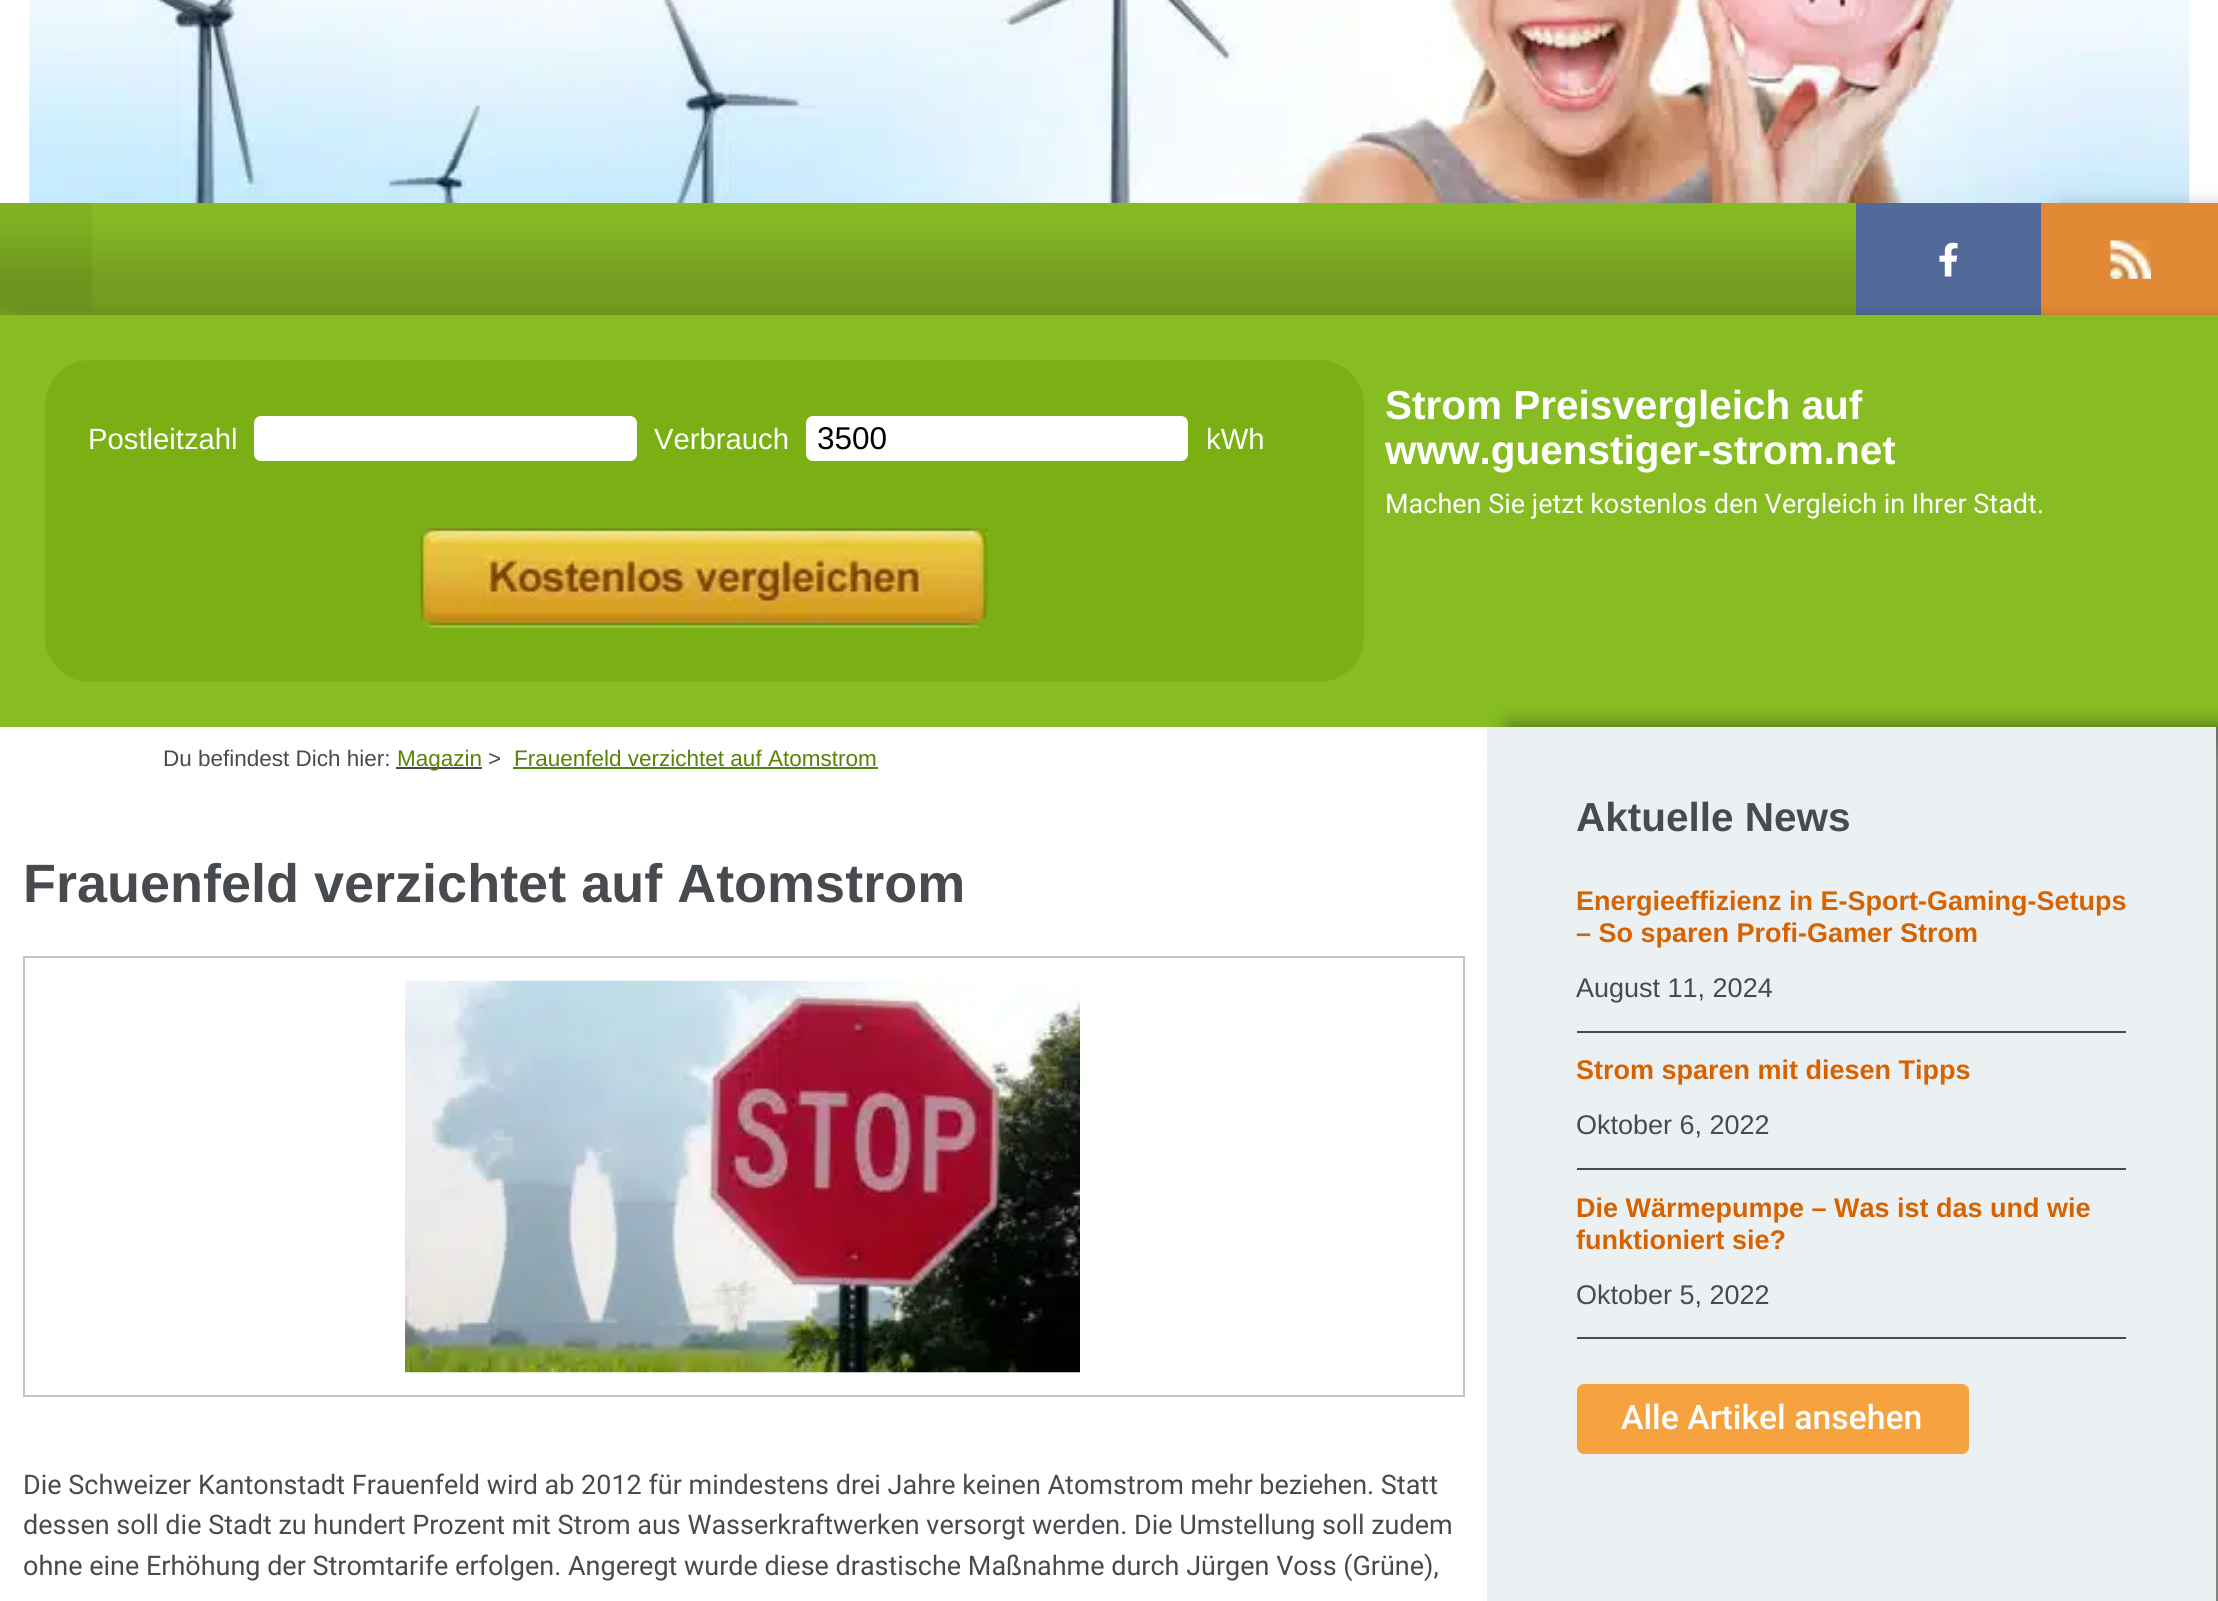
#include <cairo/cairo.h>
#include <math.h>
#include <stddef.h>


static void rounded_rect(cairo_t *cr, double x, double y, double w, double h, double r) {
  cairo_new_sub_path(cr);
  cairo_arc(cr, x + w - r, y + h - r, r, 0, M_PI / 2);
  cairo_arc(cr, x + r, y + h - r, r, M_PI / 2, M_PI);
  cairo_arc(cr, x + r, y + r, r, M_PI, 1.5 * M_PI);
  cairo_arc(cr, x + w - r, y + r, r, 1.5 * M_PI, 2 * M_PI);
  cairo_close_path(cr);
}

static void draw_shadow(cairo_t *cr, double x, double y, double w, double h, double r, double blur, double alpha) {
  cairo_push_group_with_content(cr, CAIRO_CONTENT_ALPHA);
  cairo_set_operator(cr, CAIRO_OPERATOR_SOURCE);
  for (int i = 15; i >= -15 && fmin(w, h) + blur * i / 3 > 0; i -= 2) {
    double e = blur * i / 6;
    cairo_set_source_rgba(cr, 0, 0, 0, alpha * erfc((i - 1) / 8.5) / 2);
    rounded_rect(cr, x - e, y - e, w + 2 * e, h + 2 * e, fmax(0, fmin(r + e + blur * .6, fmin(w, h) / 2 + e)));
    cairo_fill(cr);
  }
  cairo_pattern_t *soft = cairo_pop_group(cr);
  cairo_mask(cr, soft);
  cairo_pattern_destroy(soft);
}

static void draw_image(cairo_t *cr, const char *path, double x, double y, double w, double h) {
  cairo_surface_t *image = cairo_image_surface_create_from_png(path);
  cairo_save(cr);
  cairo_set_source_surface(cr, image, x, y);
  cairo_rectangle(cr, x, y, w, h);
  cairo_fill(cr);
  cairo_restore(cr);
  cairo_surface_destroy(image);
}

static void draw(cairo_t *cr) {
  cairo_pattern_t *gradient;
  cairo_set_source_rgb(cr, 1, 1, 1);
  cairo_paint(cr);
  draw_image(cr, "images/1.png", 29, 0, 2161, 203);
  cairo_set_source_rgb(cr, 82 / 255.0, 105 / 255.0, 154 / 255.0);
  cairo_rectangle(cr, 1856, 203, 185, 112);
  cairo_fill(cr);
  gradient = cairo_pattern_create_linear(928, 202, 928, 315);
  cairo_pattern_add_color_stop_rgba(gradient, 0.15, 133 / 255.0, 186 / 255.0, 36 / 255.0, 1);
  cairo_pattern_add_color_stop_rgba(gradient, 0.7, 115 / 255.0, 157 / 255.0, 31 / 255.0, 1);
  cairo_set_source(cr, gradient);
  cairo_pattern_destroy(gradient);
  cairo_rectangle(cr, 0, 203, 1856, 112);
  cairo_fill(cr);
  cairo_set_source_rgb(cr, 0, 0, 0);
  draw_shadow(cr, 2063, 212, 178, 112, 0, 11, 0.5);
  cairo_set_source_rgb(cr, 225 / 255.0, 137 / 255.0, 52 / 255.0);
  cairo_rectangle(cr, 2041, 203, 177, 112);
  cairo_fill(cr);
  cairo_set_source_rgb(cr, 0, 0, 0);
  draw_shadow(cr, 23, 326, 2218, 412, 0, 11, 0.5);
  cairo_set_source_rgba(cr, 0, 0, 0, 0.05);
  cairo_rectangle(cr, 0, 203, 92, 108);
  cairo_fill(cr);
  draw_image(cr, "images/2.png", 1939, 242, 19, 35);
  draw_image(cr, "images/3.png", 2110, 240, 41, 39);
  cairo_set_source_rgb(cr, 135 / 255.0, 189 / 255.0, 35 / 255.0);
  cairo_rectangle(cr, 0, 315, 2218, 412);
  cairo_fill(cr);
  cairo_set_source_rgb(cr, 123 / 255.0, 176 / 255.0, 20 / 255.0);
  rounded_rect(cr, 45, 360, 1319, 322, 45);
  cairo_fill(cr);
  cairo_set_source_rgb(cr, 1, 1, 1);
  rounded_rect(cr, 254, 416, 383, 45, 7);
  cairo_fill(cr);
  rounded_rect(cr, 806, 416, 382, 45, 7);
  cairo_fill(cr);
  draw_image(cr, "images/4.png", 420, 528, 568, 100);
  cairo_rectangle(cr, 1, 727, 1486, 34);
  cairo_fill(cr);
  cairo_set_source_rgb(cr, 71 / 255.0, 75 / 255.0, 79 / 255.0);
  cairo_rectangle(cr, 396, 767, 86, 2);
  cairo_fill(cr);
  cairo_set_source_rgb(cr, 87 / 255.0, 131 / 255.0, 7 / 255.0);
  cairo_rectangle(cr, 513, 767, 365, 2);
  cairo_fill(cr);
  cairo_rectangle(cr, 24, 957, 1440, 439);
  cairo_set_source_rgb(cr, 196 / 255.0, 196 / 255.0, 196 / 255.0);
  cairo_stroke(cr);
  draw_image(cr, "images/5.png", 405, 980, 675, 393);
  cairo_set_source_rgb(cr, 0, 0, 0);
  draw_shadow(cr, 1510, 727, 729, 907, 0, 11, 0.5);
  cairo_set_source_rgb(cr, 235 / 255.0, 241 / 255.0, 243 / 255.0);
  cairo_rectangle(cr, 1487, 727, 729, 874);
  cairo_fill(cr);
  cairo_set_source_rgb(cr, 71 / 255.0, 75 / 255.0, 79 / 255.0);
  cairo_rectangle(cr, 1577, 1031, 549, 2);
  cairo_fill(cr);
  cairo_rectangle(cr, 1577, 1168, 549, 2);
  cairo_fill(cr);
  cairo_rectangle(cr, 1577, 1337, 549, 2);
  cairo_fill(cr);
  cairo_set_source_rgb(cr, 246 / 255.0, 162 / 255.0, 63 / 255.0);
  rounded_rect(cr, 1577, 1384, 392, 70, 7);
  cairo_fill(cr);
  cairo_select_font_face(cr, "Liberation Sans", CAIRO_FONT_SLANT_NORMAL, CAIRO_FONT_WEIGHT_NORMAL);
  cairo_set_font_size(cr, 29.25);
  cairo_set_source_rgb(cr, 1, 1, 1);
  cairo_move_to(cr, 88, 449);
  cairo_show_text(cr, "Postleitzahl");
  cairo_move_to(cr, 654, 449);
  cairo_show_text(cr, "Verbrauch");
  cairo_set_font_size(cr, 31.5);
  cairo_set_source_rgb(cr, 0, 0, 0);
  cairo_move_to(cr, 817, 449);
  cairo_show_text(cr, "3500");
  cairo_set_font_size(cr, 29.25);
  cairo_set_source_rgb(cr, 1, 1, 1);
  cairo_move_to(cr, 1206, 449);
  cairo_show_text(cr, "kWh");
  cairo_select_font_face(cr, "Liberation Sans", CAIRO_FONT_SLANT_NORMAL, CAIRO_FONT_WEIGHT_BOLD);
  cairo_set_font_size(cr, 40.5);
  cairo_move_to(cr, 1385, 419);
  cairo_show_text(cr, "Strom Preisvergleich auf");
  cairo_move_to(cr, 1385, 464);
  cairo_show_text(cr, "www.guenstiger-strom.net");
  cairo_select_font_face(cr, "Roboto", CAIRO_FONT_SLANT_NORMAL, CAIRO_FONT_WEIGHT_NORMAL);
  cairo_set_font_size(cr, 27);
  cairo_move_to(cr, 1385, 513);
  cairo_show_text(cr, "Machen Sie jetzt kostenlos den Vergleich in Ihrer Stadt.");
  cairo_select_font_face(cr, "Liberation Sans", CAIRO_FONT_SLANT_NORMAL, CAIRO_FONT_WEIGHT_NORMAL);
  cairo_set_font_size(cr, 22.5);
  cairo_set_source_rgb(cr, 71 / 255.0, 75 / 255.0, 79 / 255.0);
  cairo_move_to(cr, 163, 766);
  cairo_show_text(cr, "Du befindest Dich hier:");
  cairo_set_source_rgb(cr, 87 / 255.0, 131 / 255.0, 7 / 255.0);
  cairo_move_to(cr, 397, 766);
  cairo_show_text(cr, "Magazin");
  cairo_set_source_rgb(cr, 71 / 255.0, 75 / 255.0, 79 / 255.0);
  cairo_move_to(cr, 488, 766);
  cairo_show_text(cr, ">");
  cairo_set_source_rgb(cr, 87 / 255.0, 131 / 255.0, 7 / 255.0);
  cairo_move_to(cr, 514, 766);
  cairo_show_text(cr, "Frauenfeld verzichtet auf Atomstrom");
  cairo_select_font_face(cr, "Liberation Sans", CAIRO_FONT_SLANT_NORMAL, CAIRO_FONT_WEIGHT_BOLD);
  cairo_set_font_size(cr, 54);
  cairo_set_source_rgb(cr, 71 / 255.0, 75 / 255.0, 79 / 255.0);
  cairo_move_to(cr, 23, 902);
  cairo_show_text(cr, "Frauenfeld verzichtet auf Atomstrom");
  cairo_select_font_face(cr, "Roboto", CAIRO_FONT_SLANT_NORMAL, CAIRO_FONT_WEIGHT_NORMAL);
  cairo_set_font_size(cr, 27);
  cairo_move_to(cr, 23, 1494);
  cairo_show_text(cr, "Die Schweizer Kantonstadt Frauenfeld wird ab 2012 für mindestens drei Jahre keinen Atomstrom mehr beziehen. Statt");
  cairo_move_to(cr, 23, 1534);
  cairo_show_text(cr, "dessen soll die Stadt zu hundert Prozent mit Strom aus Wasserkraftwerken versorgt werden. Die Umstellung soll zudem");
  cairo_move_to(cr, 23, 1575);
  cairo_show_text(cr, "ohne eine Erhöhung der Stromtarife erfolgen. Angeregt wurde diese drastische Maßnahme durch Jürgen Voss (Grüne),");
  cairo_select_font_face(cr, "Liberation Sans", CAIRO_FONT_SLANT_NORMAL, CAIRO_FONT_WEIGHT_BOLD);
  cairo_set_font_size(cr, 40.5);
  cairo_move_to(cr, 1576, 831);
  cairo_show_text(cr, "Aktuelle News");
  cairo_set_font_size(cr, 27);
  cairo_set_source_rgb(cr, 214 / 255.0, 98 / 255.0, 0);
  cairo_move_to(cr, 1576, 910);
  cairo_show_text(cr, "Energieeffizienz in E-Sport-Gaming-Setups");
  cairo_move_to(cr, 1576, 942);
  cairo_show_text(cr, "– So sparen Profi-Gamer Strom");
  cairo_select_font_face(cr, "Liberation Sans", CAIRO_FONT_SLANT_NORMAL, CAIRO_FONT_WEIGHT_NORMAL);
  cairo_set_source_rgb(cr, 71 / 255.0, 75 / 255.0, 79 / 255.0);
  cairo_move_to(cr, 1576, 997);
  cairo_show_text(cr, "August 11, 2024");
  cairo_select_font_face(cr, "Liberation Sans", CAIRO_FONT_SLANT_NORMAL, CAIRO_FONT_WEIGHT_BOLD);
  cairo_set_source_rgb(cr, 214 / 255.0, 98 / 255.0, 0);
  cairo_move_to(cr, 1576, 1079);
  cairo_show_text(cr, "Strom sparen mit diesen Tipps");
  cairo_select_font_face(cr, "Liberation Sans", CAIRO_FONT_SLANT_NORMAL, CAIRO_FONT_WEIGHT_NORMAL);
  cairo_set_source_rgb(cr, 71 / 255.0, 75 / 255.0, 79 / 255.0);
  cairo_move_to(cr, 1576, 1134);
  cairo_show_text(cr, "Oktober 6, 2022");
  cairo_select_font_face(cr, "Liberation Sans", CAIRO_FONT_SLANT_NORMAL, CAIRO_FONT_WEIGHT_BOLD);
  cairo_set_source_rgb(cr, 214 / 255.0, 98 / 255.0, 0);
  cairo_move_to(cr, 1576, 1217);
  cairo_show_text(cr, "Die Wärmepumpe – Was ist das und wie");
  cairo_move_to(cr, 1576, 1249);
  cairo_show_text(cr, "funktioniert sie?");
  cairo_select_font_face(cr, "Liberation Sans", CAIRO_FONT_SLANT_NORMAL, CAIRO_FONT_WEIGHT_NORMAL);
  cairo_set_source_rgb(cr, 71 / 255.0, 75 / 255.0, 79 / 255.0);
  cairo_move_to(cr, 1576, 1304);
  cairo_show_text(cr, "Oktober 5, 2022");
  cairo_select_font_face(cr, "Roboto Medium", CAIRO_FONT_SLANT_NORMAL, CAIRO_FONT_WEIGHT_NORMAL);
  cairo_set_font_size(cr, 33.75);
  cairo_set_source_rgb(cr, 1, 1, 1);
  cairo_move_to(cr, 1621, 1429);
  cairo_show_text(cr, "Alle Artikel ansehen");
}

int main(void) {
  cairo_surface_t *surface = cairo_image_surface_create(CAIRO_FORMAT_RGB24, 2218, 1601);
  cairo_t *cr = cairo_create(surface);
  cairo_font_options_t *options = cairo_font_options_create();
  cairo_font_options_set_hint_metrics(options, CAIRO_HINT_METRICS_OFF);
  cairo_font_options_set_hint_style(options, CAIRO_HINT_STYLE_NONE);
  cairo_set_font_options(cr, options);
  cairo_set_miter_limit(cr, 4);
  draw(cr);
  cairo_surface_write_to_png(surface, "out.png");
  cairo_font_options_destroy(options);
  cairo_destroy(cr);
  cairo_surface_destroy(surface);
  return 0;
}
